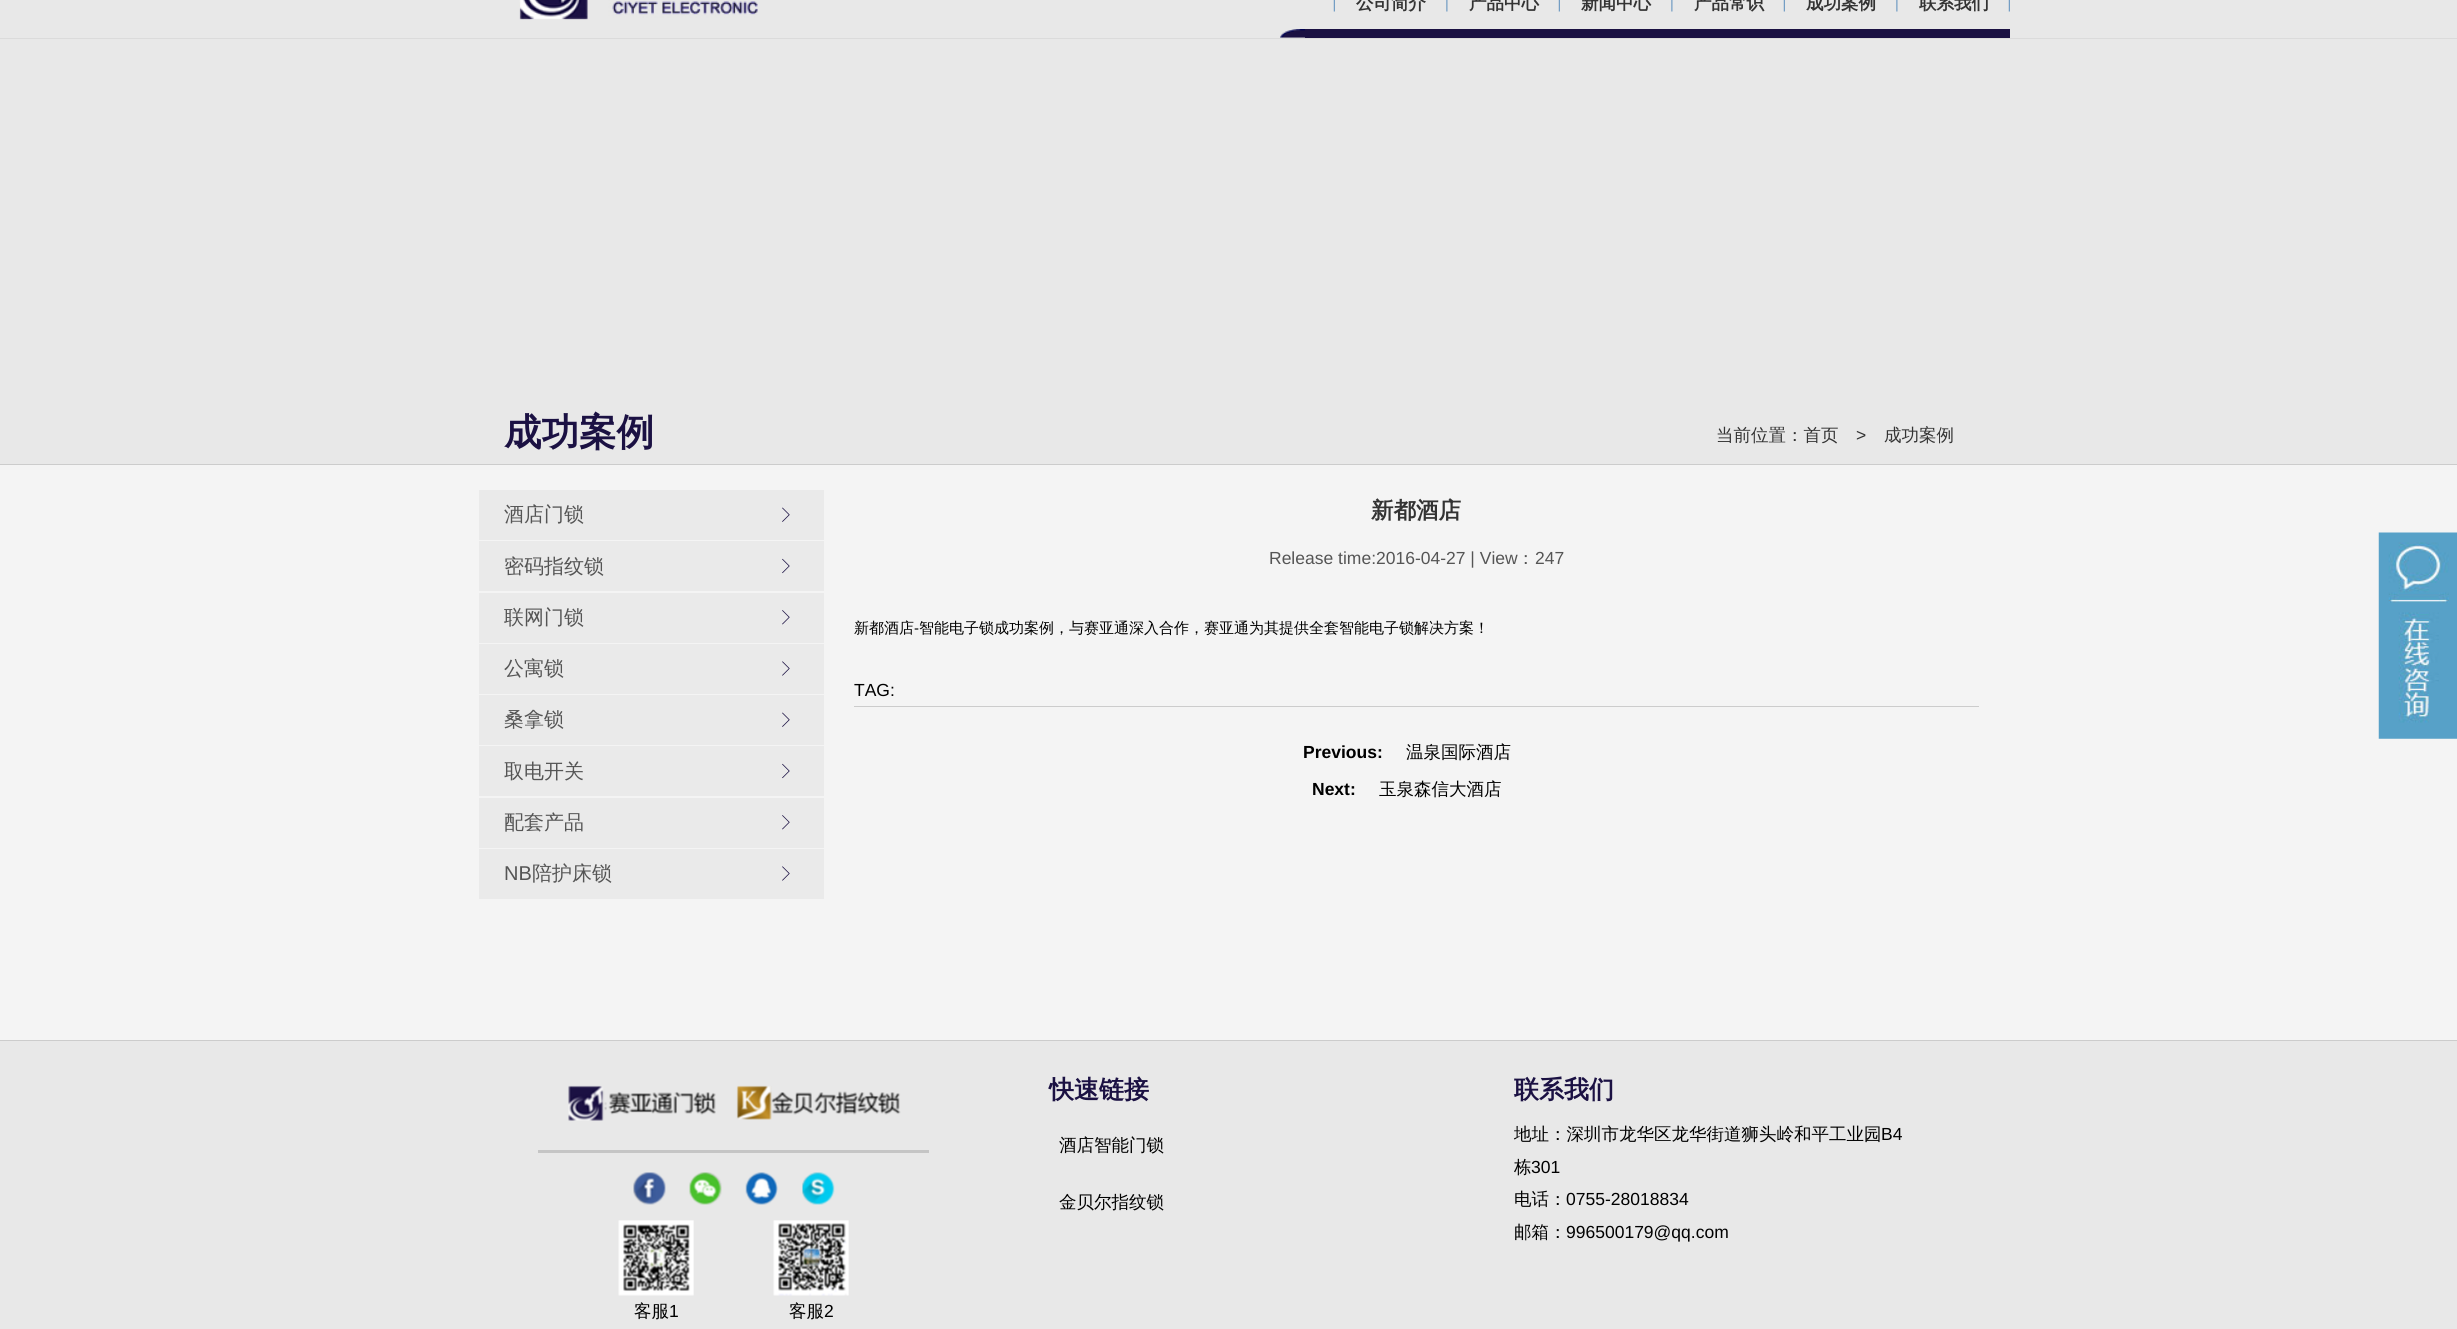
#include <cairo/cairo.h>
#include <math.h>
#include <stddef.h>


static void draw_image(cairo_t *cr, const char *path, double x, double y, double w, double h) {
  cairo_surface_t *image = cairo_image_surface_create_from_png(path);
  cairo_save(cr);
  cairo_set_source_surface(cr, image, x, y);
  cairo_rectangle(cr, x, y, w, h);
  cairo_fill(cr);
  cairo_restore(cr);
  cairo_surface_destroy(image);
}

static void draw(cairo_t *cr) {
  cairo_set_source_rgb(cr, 232 / 255.0, 232 / 255.0, 232 / 255.0);
  cairo_paint(cr);
  cairo_set_source_rgb(cr, 219 / 255.0, 219 / 255.0, 219 / 255.0);
  cairo_rectangle(cr, 0, 38, 2457, 1);
  cairo_fill(cr);
  draw_image(cr, "images/1.png", 519, 0, 239, 20);
  draw_image(cr, "images/2.png", 1333, 0, 2, 12);
  draw_image(cr, "images/3.png", 1446, 0, 2, 12);
  draw_image(cr, "images/2.png", 1558, 0, 2, 12);
  draw_image(cr, "images/3.png", 1671, 0, 2, 12);
  draw_image(cr, "images/2.png", 1783, 0, 2, 12);
  draw_image(cr, "images/3.png", 1896, 0, 2, 12);
  draw_image(cr, "images/2.png", 2008, 0, 2, 12);
  draw_image(cr, "images/4.png", 1280, 29, 25, 9);
  cairo_set_source_rgb(cr, 27 / 255.0, 17 / 255.0, 67 / 255.0);
  cairo_rectangle(cr, 1305, 29, 705, 9);
  cairo_fill(cr);
  cairo_set_source_rgb(cr, 244 / 255.0, 244 / 255.0, 244 / 255.0);
  cairo_rectangle(cr, 0, 465, 2457, 575);
  cairo_fill(cr);
  cairo_set_source_rgb(cr, 204 / 255.0, 204 / 255.0, 204 / 255.0);
  cairo_rectangle(cr, 0, 464, 2457, 1);
  cairo_fill(cr);
  cairo_rectangle(cr, 0, 1040, 2457, 1);
  cairo_fill(cr);
  cairo_set_source_rgb(cr, 234 / 255.0, 234 / 255.0, 234 / 255.0);
  cairo_rectangle(cr, 479, 490, 345, 50);
  cairo_fill(cr);
  draw_image(cr, "images/5.png", 782, 507, 8, 15);
  cairo_rectangle(cr, 479, 541, 345, 50);
  cairo_fill(cr);
  draw_image(cr, "images/6.png", 782, 558, 8, 16);
  cairo_rectangle(cr, 479, 593, 345, 50);
  cairo_fill(cr);
  draw_image(cr, "images/7.png", 782, 610, 8, 15);
  cairo_rectangle(cr, 479, 644, 345, 50);
  cairo_fill(cr);
  draw_image(cr, "images/8.png", 782, 661, 8, 15);
  cairo_rectangle(cr, 479, 695, 345, 50);
  cairo_fill(cr);
  draw_image(cr, "images/5.png", 782, 712, 8, 15);
  cairo_rectangle(cr, 479, 746, 345, 50);
  cairo_fill(cr);
  draw_image(cr, "images/6.png", 782, 763, 8, 16);
  cairo_rectangle(cr, 479, 798, 345, 50);
  cairo_fill(cr);
  draw_image(cr, "images/7.png", 782, 815, 8, 15);
  cairo_rectangle(cr, 479, 849, 345, 50);
  cairo_fill(cr);
  draw_image(cr, "images/8.png", 782, 866, 8, 15);
  cairo_set_source_rgb(cr, 204 / 255.0, 204 / 255.0, 204 / 255.0);
  cairo_rectangle(cr, 854, 706, 1125, 1);
  cairo_fill(cr);
  draw_image(cr, "images/9.png", 2378, 532, 79, 207);
  draw_image(cr, "images/10.png", 568, 1085, 333, 36);
  cairo_set_source_rgb(cr, 197 / 255.0, 197 / 255.0, 197 / 255.0);
  cairo_rectangle(cr, 538, 1150, 391, 3);
  cairo_fill(cr);
  draw_image(cr, "images/11.png", 633, 1172, 33, 33);
  draw_image(cr, "images/12.png", 689, 1172, 33, 33);
  draw_image(cr, "images/13.png", 745, 1172, 33, 33);
  draw_image(cr, "images/14.png", 802, 1172, 33, 33);
  draw_image(cr, "images/15.png", 618, 1220, 76, 76);
  draw_image(cr, "images/16.png", 773, 1220, 76, 76);
  cairo_select_font_face(cr, "WenQuanYi Zen Hei", CAIRO_FONT_SLANT_NORMAL, CAIRO_FONT_WEIGHT_BOLD);
  cairo_set_font_size(cr, 17.5);
  cairo_set_source_rgb(cr, 51 / 255.0, 51 / 255.0, 51 / 255.0);
  cairo_move_to(cr, 1356, 9);
  cairo_show_text(cr, "公司简介");
  cairo_move_to(cr, 1469, 9);
  cairo_show_text(cr, "产品中心");
  cairo_move_to(cr, 1581, 9);
  cairo_show_text(cr, "新闻中心");
  cairo_move_to(cr, 1694, 9);
  cairo_show_text(cr, "产品常识");
  cairo_move_to(cr, 1806, 9);
  cairo_show_text(cr, "成功案例");
  cairo_move_to(cr, 1919, 9);
  cairo_show_text(cr, "联系我们");
  cairo_set_font_size(cr, 37.5);
  cairo_set_source_rgb(cr, 27 / 255.0, 17 / 255.0, 67 / 255.0);
  cairo_move_to(cr, 504, 445);
  cairo_show_text(cr, "成功案例");
  cairo_select_font_face(cr, "WenQuanYi Zen Hei Medium", CAIRO_FONT_SLANT_NORMAL, CAIRO_FONT_WEIGHT_NORMAL);
  cairo_set_font_size(cr, 17.5);
  cairo_set_source_rgb(cr, 51 / 255.0, 51 / 255.0, 51 / 255.0);
  cairo_move_to(cr, 1716, 441);
  cairo_show_text(cr, "当前位置：首页");
  cairo_select_font_face(cr, "Liberation Sans", CAIRO_FONT_SLANT_NORMAL, CAIRO_FONT_WEIGHT_NORMAL);
  cairo_move_to(cr, 1856, 441);
  cairo_show_text(cr, ">");
  cairo_select_font_face(cr, "WenQuanYi Zen Hei Medium", CAIRO_FONT_SLANT_NORMAL, CAIRO_FONT_WEIGHT_NORMAL);
  cairo_move_to(cr, 1884, 441);
  cairo_show_text(cr, "成功案例");
  cairo_set_font_size(cr, 20);
  cairo_set_source_rgb(cr, 85 / 255.0, 85 / 255.0, 85 / 255.0);
  cairo_move_to(cr, 504, 521);
  cairo_show_text(cr, "酒店门锁");
  cairo_move_to(cr, 504, 573);
  cairo_show_text(cr, "密码指纹锁");
  cairo_move_to(cr, 504, 624);
  cairo_show_text(cr, "联网门锁");
  cairo_move_to(cr, 504, 675);
  cairo_show_text(cr, "公寓锁");
  cairo_move_to(cr, 504, 726);
  cairo_show_text(cr, "桑拿锁");
  cairo_move_to(cr, 504, 778);
  cairo_show_text(cr, "取电开关");
  cairo_move_to(cr, 504, 829);
  cairo_show_text(cr, "配套产品");
  cairo_select_font_face(cr, "Liberation Sans", CAIRO_FONT_SLANT_NORMAL, CAIRO_FONT_WEIGHT_NORMAL);
  cairo_move_to(cr, 504, 880);
  cairo_show_text(cr, "NB");
  cairo_select_font_face(cr, "WenQuanYi Zen Hei Medium", CAIRO_FONT_SLANT_NORMAL, CAIRO_FONT_WEIGHT_NORMAL);
  cairo_move_to(cr, 532, 880);
  cairo_show_text(cr, "陪护床锁");
  cairo_select_font_face(cr, "WenQuanYi Zen Hei", CAIRO_FONT_SLANT_NORMAL, CAIRO_FONT_WEIGHT_BOLD);
  cairo_set_font_size(cr, 22.5);
  cairo_set_source_rgb(cr, 51 / 255.0, 51 / 255.0, 51 / 255.0);
  cairo_move_to(cr, 1371, 518);
  cairo_show_text(cr, "新都酒店");
  cairo_select_font_face(cr, "Liberation Sans", CAIRO_FONT_SLANT_NORMAL, CAIRO_FONT_WEIGHT_NORMAL);
  cairo_set_font_size(cr, 17.5);
  cairo_set_source_rgb(cr, 85 / 255.0, 85 / 255.0, 85 / 255.0);
  cairo_move_to(cr, 1269, 564);
  cairo_show_text(cr, "Release time:2016-04-27 | View");
  cairo_select_font_face(cr, "WenQuanYi Zen Hei Medium", CAIRO_FONT_SLANT_NORMAL, CAIRO_FONT_WEIGHT_NORMAL);
  cairo_move_to(cr, 1517, 564);
  cairo_show_text(cr, "：");
  cairo_select_font_face(cr, "Liberation Sans", CAIRO_FONT_SLANT_NORMAL, CAIRO_FONT_WEIGHT_NORMAL);
  cairo_move_to(cr, 1535, 564);
  cairo_show_text(cr, "247");
  cairo_select_font_face(cr, "WenQuanYi Zen Hei Medium", CAIRO_FONT_SLANT_NORMAL, CAIRO_FONT_WEIGHT_NORMAL);
  cairo_set_font_size(cr, 15);
  cairo_set_source_rgb(cr, 0, 0, 0);
  cairo_move_to(cr, 854, 633);
  cairo_show_text(cr, "新都酒店");
  cairo_select_font_face(cr, "Liberation Sans", CAIRO_FONT_SLANT_NORMAL, CAIRO_FONT_WEIGHT_NORMAL);
  cairo_move_to(cr, 914, 633);
  cairo_show_text(cr, "-");
  cairo_select_font_face(cr, "WenQuanYi Zen Hei Medium", CAIRO_FONT_SLANT_NORMAL, CAIRO_FONT_WEIGHT_NORMAL);
  cairo_move_to(cr, 919, 633);
  cairo_show_text(cr, "智能电子锁成功案例，与赛亚通深入合作，赛亚通为其提供全套智能电子锁解决方案！");
  cairo_select_font_face(cr, "Liberation Sans", CAIRO_FONT_SLANT_NORMAL, CAIRO_FONT_WEIGHT_NORMAL);
  cairo_set_font_size(cr, 17.5);
  cairo_move_to(cr, 854, 696);
  cairo_show_text(cr, "TAG:");
  cairo_select_font_face(cr, "Liberation Sans", CAIRO_FONT_SLANT_NORMAL, CAIRO_FONT_WEIGHT_BOLD);
  cairo_move_to(cr, 1303, 758);
  cairo_show_text(cr, "Previous:");
  cairo_select_font_face(cr, "WenQuanYi Zen Hei Medium", CAIRO_FONT_SLANT_NORMAL, CAIRO_FONT_WEIGHT_NORMAL);
  cairo_move_to(cr, 1406, 758);
  cairo_show_text(cr, "温泉国际酒店");
  cairo_select_font_face(cr, "Liberation Sans", CAIRO_FONT_SLANT_NORMAL, CAIRO_FONT_WEIGHT_BOLD);
  cairo_move_to(cr, 1312, 795);
  cairo_show_text(cr, "Next:");
  cairo_select_font_face(cr, "WenQuanYi Zen Hei Medium", CAIRO_FONT_SLANT_NORMAL, CAIRO_FONT_WEIGHT_NORMAL);
  cairo_move_to(cr, 1379, 795);
  cairo_show_text(cr, "玉泉森信大酒店");
  cairo_select_font_face(cr, "WenQuanYi Zen Hei", CAIRO_FONT_SLANT_NORMAL, CAIRO_FONT_WEIGHT_BOLD);
  cairo_set_font_size(cr, 25);
  cairo_set_source_rgb(cr, 27 / 255.0, 17 / 255.0, 67 / 255.0);
  cairo_move_to(cr, 1049, 1098);
  cairo_show_text(cr, "快速链接");
  cairo_select_font_face(cr, "WenQuanYi Zen Hei Medium", CAIRO_FONT_SLANT_NORMAL, CAIRO_FONT_WEIGHT_NORMAL);
  cairo_set_font_size(cr, 17.5);
  cairo_set_source_rgb(cr, 0, 0, 0);
  cairo_move_to(cr, 1059, 1151);
  cairo_show_text(cr, "酒店智能门锁");
  cairo_move_to(cr, 1059, 1208);
  cairo_show_text(cr, "金贝尔指纹锁");
  cairo_select_font_face(cr, "WenQuanYi Zen Hei", CAIRO_FONT_SLANT_NORMAL, CAIRO_FONT_WEIGHT_BOLD);
  cairo_set_font_size(cr, 25);
  cairo_set_source_rgb(cr, 27 / 255.0, 17 / 255.0, 67 / 255.0);
  cairo_move_to(cr, 1514, 1098);
  cairo_show_text(cr, "联系我们");
  cairo_select_font_face(cr, "WenQuanYi Zen Hei Medium", CAIRO_FONT_SLANT_NORMAL, CAIRO_FONT_WEIGHT_NORMAL);
  cairo_set_font_size(cr, 17.5);
  cairo_set_source_rgb(cr, 0, 0, 0);
  cairo_move_to(cr, 1514, 1140);
  cairo_show_text(cr, "地址：深圳市龙华区龙华街道狮头岭和平工业园");
  cairo_select_font_face(cr, "Liberation Sans", CAIRO_FONT_SLANT_NORMAL, CAIRO_FONT_WEIGHT_NORMAL);
  cairo_move_to(cr, 1881, 1140);
  cairo_show_text(cr, "B4");
  cairo_select_font_face(cr, "WenQuanYi Zen Hei Medium", CAIRO_FONT_SLANT_NORMAL, CAIRO_FONT_WEIGHT_NORMAL);
  cairo_move_to(cr, 1514, 1173);
  cairo_show_text(cr, "栋");
  cairo_select_font_face(cr, "Liberation Sans", CAIRO_FONT_SLANT_NORMAL, CAIRO_FONT_WEIGHT_NORMAL);
  cairo_move_to(cr, 1531, 1173);
  cairo_show_text(cr, "301");
  cairo_select_font_face(cr, "WenQuanYi Zen Hei Medium", CAIRO_FONT_SLANT_NORMAL, CAIRO_FONT_WEIGHT_NORMAL);
  cairo_move_to(cr, 1514, 1205);
  cairo_show_text(cr, "电话：");
  cairo_select_font_face(cr, "Liberation Sans", CAIRO_FONT_SLANT_NORMAL, CAIRO_FONT_WEIGHT_NORMAL);
  cairo_move_to(cr, 1566, 1205);
  cairo_show_text(cr, "0755-28018834");
  cairo_select_font_face(cr, "WenQuanYi Zen Hei Medium", CAIRO_FONT_SLANT_NORMAL, CAIRO_FONT_WEIGHT_NORMAL);
  cairo_move_to(cr, 1514, 1238);
  cairo_show_text(cr, "邮箱：");
  cairo_select_font_face(cr, "Liberation Sans", CAIRO_FONT_SLANT_NORMAL, CAIRO_FONT_WEIGHT_NORMAL);
  cairo_move_to(cr, 1566, 1238);
  cairo_show_text(cr, "996500179@qq.com");
  cairo_select_font_face(cr, "WenQuanYi Zen Hei Medium", CAIRO_FONT_SLANT_NORMAL, CAIRO_FONT_WEIGHT_NORMAL);
  cairo_move_to(cr, 634, 1317);
  cairo_show_text(cr, "客服");
  cairo_select_font_face(cr, "Liberation Sans", CAIRO_FONT_SLANT_NORMAL, CAIRO_FONT_WEIGHT_NORMAL);
  cairo_move_to(cr, 669, 1317);
  cairo_show_text(cr, "1");
  cairo_select_font_face(cr, "WenQuanYi Zen Hei Medium", CAIRO_FONT_SLANT_NORMAL, CAIRO_FONT_WEIGHT_NORMAL);
  cairo_move_to(cr, 789, 1317);
  cairo_show_text(cr, "客服");
  cairo_select_font_face(cr, "Liberation Sans", CAIRO_FONT_SLANT_NORMAL, CAIRO_FONT_WEIGHT_NORMAL);
  cairo_move_to(cr, 824, 1317);
  cairo_show_text(cr, "2");
}

int main(void) {
  cairo_surface_t *surface = cairo_image_surface_create(CAIRO_FORMAT_RGB24, 2457, 1329);
  cairo_t *cr = cairo_create(surface);
  cairo_font_options_t *options = cairo_font_options_create();
  cairo_font_options_set_hint_metrics(options, CAIRO_HINT_METRICS_OFF);
  cairo_font_options_set_hint_style(options, CAIRO_HINT_STYLE_NONE);
  cairo_set_font_options(cr, options);
  cairo_set_miter_limit(cr, 4);
  draw(cr);
  cairo_surface_write_to_png(surface, "out.png");
  cairo_font_options_destroy(options);
  cairo_destroy(cr);
  cairo_surface_destroy(surface);
  return 0;
}
